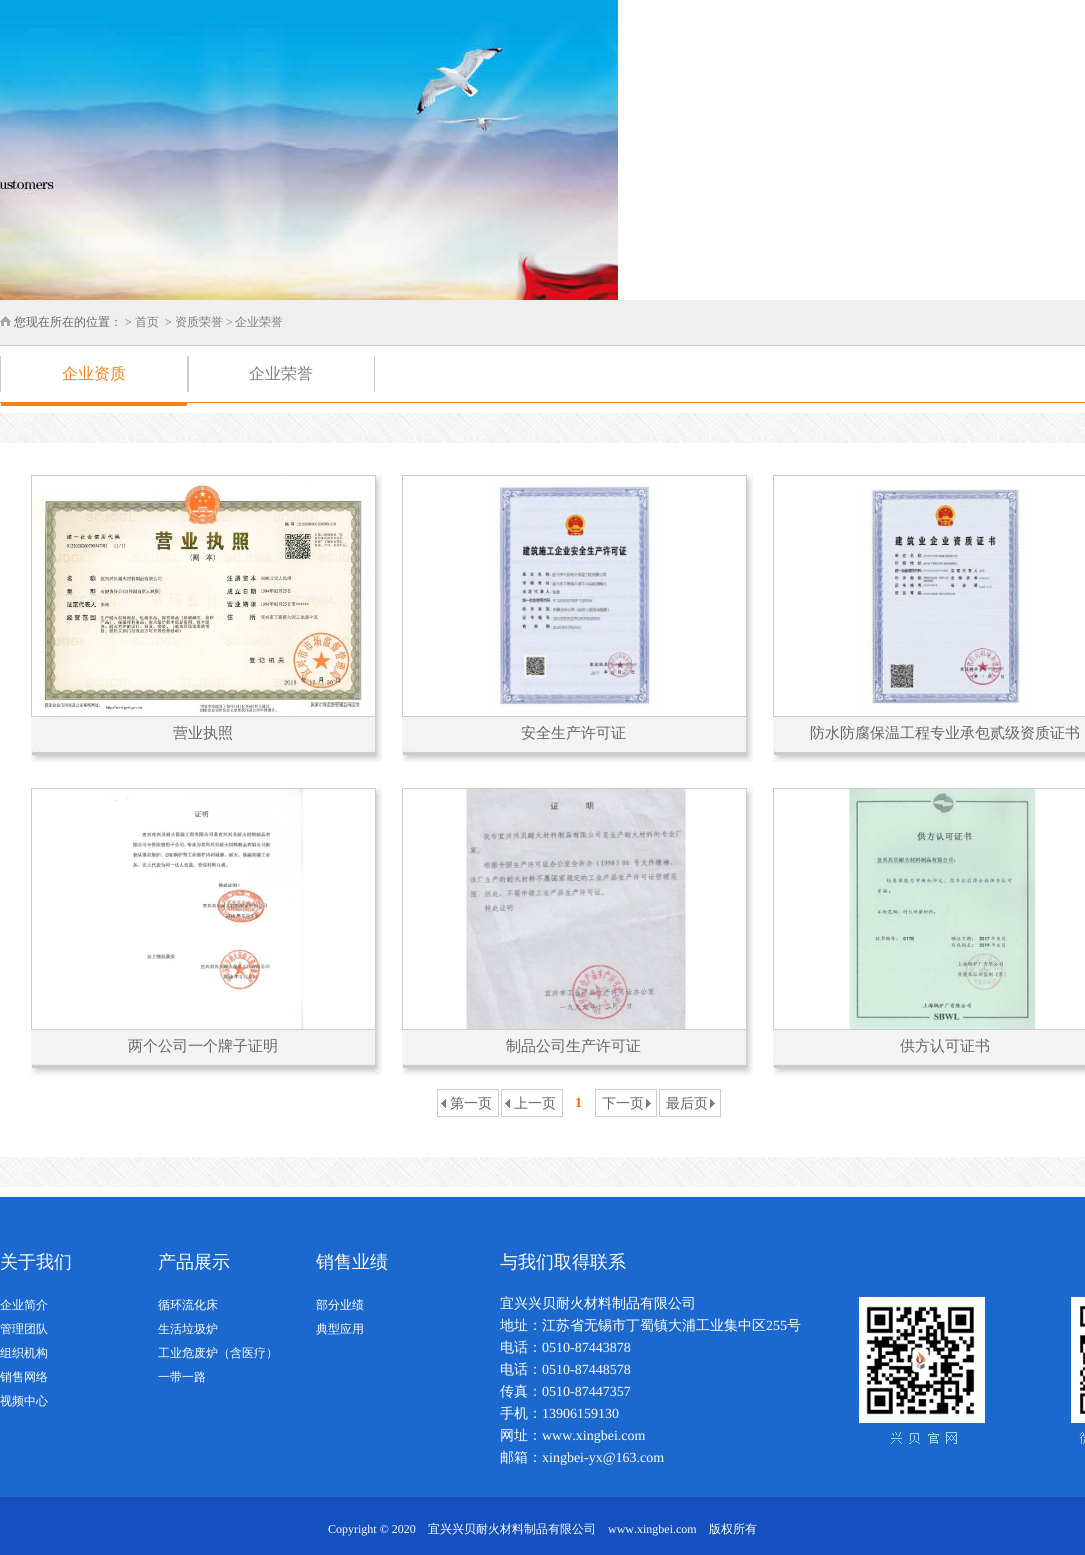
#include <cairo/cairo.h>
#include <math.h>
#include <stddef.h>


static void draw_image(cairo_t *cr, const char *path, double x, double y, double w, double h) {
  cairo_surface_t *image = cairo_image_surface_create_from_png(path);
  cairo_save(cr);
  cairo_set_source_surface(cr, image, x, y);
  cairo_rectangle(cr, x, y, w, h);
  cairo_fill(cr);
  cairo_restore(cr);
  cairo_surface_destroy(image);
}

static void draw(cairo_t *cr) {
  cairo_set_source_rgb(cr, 1, 1, 1);
  cairo_paint(cr);
  draw_image(cr, "images/1.png", 0, 0, 618, 300);
  cairo_set_source_rgb(cr, 239 / 255.0, 239 / 255.0, 239 / 255.0);
  cairo_rectangle(cr, 0, 300, 1085, 45);
  cairo_fill(cr);
  draw_image(cr, "images/2.png", 0, 316, 11, 10);
  cairo_set_source_rgb(cr, 204 / 255.0, 204 / 255.0, 204 / 255.0);
  cairo_rectangle(cr, 0, 345, 1085, 1);
  cairo_fill(cr);
  cairo_set_source_rgb(cr, 247 / 255.0, 130 / 255.0, 20 / 255.0);
  cairo_rectangle(cr, 0, 402, 1085, 1);
  cairo_fill(cr);
  cairo_set_source_rgb(cr, 204 / 255.0, 204 / 255.0, 204 / 255.0);
  cairo_rectangle(cr, 187, 356, 2, 36);
  cairo_fill(cr);
  cairo_rectangle(cr, 0, 356, 1, 36);
  cairo_fill(cr);
  cairo_set_source_rgb(cr, 247 / 255.0, 130 / 255.0, 19 / 255.0);
  cairo_rectangle(cr, 1, 403, 186, 3);
  cairo_fill(cr);
  cairo_set_source_rgb(cr, 204 / 255.0, 204 / 255.0, 204 / 255.0);
  cairo_rectangle(cr, 374, 356, 1, 36);
  cairo_fill(cr);
  draw_image(cr, "images/3.png", 0, 413, 1085, 774);
  cairo_set_source_rgb(cr, 1, 1, 1);
  cairo_rectangle(cr, 0, 443, 1085, 714);
  cairo_fill(cr);
  draw_image(cr, "images/4.png", 31, 475, 351, 287);
  cairo_rectangle(cr, 31.5, 475.5, 344, 241);
  cairo_set_source_rgb(cr, 204 / 255.0, 204 / 255.0, 204 / 255.0);
  cairo_set_line_width(cr, 1);
  cairo_stroke(cr);
  draw_image(cr, "images/5.png", 32, 477, 343, 239);
  draw_image(cr, "images/4.png", 402, 475, 351, 287);
  cairo_rectangle(cr, 402.5, 475.5, 344, 241);
  cairo_stroke(cr);
  draw_image(cr, "images/6.png", 403, 483, 343, 233);
  draw_image(cr, "images/7.png", 773, 476, 312, 286);
  cairo_rectangle(cr, 773.5, 475.5, 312, 241);
  cairo_stroke(cr);
  draw_image(cr, "images/8.png", 774, 489, 311, 227);
  draw_image(cr, "images/4.png", 31, 788, 351, 287);
  cairo_rectangle(cr, 31.5, 788.5, 344, 241);
  cairo_stroke(cr);
  draw_image(cr, "images/9.png", 32, 789, 343, 240);
  draw_image(cr, "images/4.png", 402, 788, 351, 287);
  cairo_rectangle(cr, 402.5, 788.5, 344, 241);
  cairo_stroke(cr);
  draw_image(cr, "images/10.png", 403, 789, 343, 240);
  draw_image(cr, "images/11.png", 773, 1030, 312, 45);
  cairo_rectangle(cr, 773.5, 788.5, 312, 241);
  cairo_stroke(cr);
  draw_image(cr, "images/12.png", 774, 789, 311, 240);
  draw_image(cr, "images/13.png", 441, 1099, 5, 9);
  cairo_rectangle(cr, 437.5, 1089.5, 61, 27);
  cairo_stroke(cr);
  draw_image(cr, "images/13.png", 505, 1099, 5, 9);
  cairo_rectangle(cr, 501.5, 1089.5, 61, 27);
  cairo_stroke(cr);
  draw_image(cr, "images/14.png", 646, 1099, 5, 9);
  cairo_rectangle(cr, 595.5, 1089.5, 61, 27);
  cairo_stroke(cr);
  draw_image(cr, "images/14.png", 710, 1099, 5, 9);
  cairo_rectangle(cr, 659.5, 1089.5, 61, 27);
  cairo_stroke(cr);
  cairo_set_source_rgb(cr, 27 / 255.0, 105 / 255.0, 206 / 255.0);
  cairo_rectangle(cr, 0, 1197, 1085, 300);
  cairo_fill(cr);
  draw_image(cr, "images/15.png", 1065, 1293, 20, 152);
  draw_image(cr, "images/16.png", 858, 1296, 128, 148);
  cairo_set_source_rgb(cr, 20 / 255.0, 80 / 255.0, 190 / 255.0);
  cairo_rectangle(cr, 0, 1497, 1085, 58);
  cairo_fill(cr);
  cairo_select_font_face(cr, "WenQuanYi Zen Hei Medium", CAIRO_FONT_SLANT_NORMAL, CAIRO_FONT_WEIGHT_NORMAL);
  cairo_set_font_size(cr, 12);
  cairo_set_source_rgb(cr, 102 / 255.0, 102 / 255.0, 102 / 255.0);
  cairo_move_to(cr, 14, 326);
  cairo_show_text(cr, "您现在所在的位置：");
  cairo_select_font_face(cr, "Liberation Serif", CAIRO_FONT_SLANT_NORMAL, CAIRO_FONT_WEIGHT_NORMAL);
  cairo_move_to(cr, 125, 326);
  cairo_show_text(cr, ">");
  cairo_select_font_face(cr, "WenQuanYi Zen Hei Medium", CAIRO_FONT_SLANT_NORMAL, CAIRO_FONT_WEIGHT_NORMAL);
  cairo_set_source_rgb(cr, 128 / 255.0, 128 / 255.0, 128 / 255.0);
  cairo_move_to(cr, 135, 326);
  cairo_show_text(cr, "首页");
  cairo_select_font_face(cr, "Liberation Serif", CAIRO_FONT_SLANT_NORMAL, CAIRO_FONT_WEIGHT_NORMAL);
  cairo_set_source_rgb(cr, 102 / 255.0, 102 / 255.0, 102 / 255.0);
  cairo_move_to(cr, 165, 326);
  cairo_show_text(cr, ">");
  cairo_select_font_face(cr, "WenQuanYi Zen Hei Medium", CAIRO_FONT_SLANT_NORMAL, CAIRO_FONT_WEIGHT_NORMAL);
  cairo_set_source_rgb(cr, 128 / 255.0, 128 / 255.0, 128 / 255.0);
  cairo_move_to(cr, 175, 326);
  cairo_show_text(cr, "资质荣誉");
  cairo_select_font_face(cr, "Liberation Serif", CAIRO_FONT_SLANT_NORMAL, CAIRO_FONT_WEIGHT_NORMAL);
  cairo_move_to(cr, 226, 326);
  cairo_show_text(cr, ">");
  cairo_select_font_face(cr, "WenQuanYi Zen Hei Medium", CAIRO_FONT_SLANT_NORMAL, CAIRO_FONT_WEIGHT_NORMAL);
  cairo_move_to(cr, 235, 326);
  cairo_show_text(cr, "企业荣誉");
  cairo_set_font_size(cr, 16);
  cairo_set_source_rgb(cr, 247 / 255.0, 130 / 255.0, 20 / 255.0);
  cairo_move_to(cr, 62, 379);
  cairo_show_text(cr, "企业资质");
  cairo_set_source_rgb(cr, 128 / 255.0, 128 / 255.0, 128 / 255.0);
  cairo_move_to(cr, 249, 379);
  cairo_show_text(cr, "企业荣誉");
  cairo_set_font_size(cr, 15);
  cairo_set_source_rgb(cr, 102 / 255.0, 102 / 255.0, 102 / 255.0);
  cairo_move_to(cr, 173, 738);
  cairo_show_text(cr, "营业执照");
  cairo_move_to(cr, 521, 738);
  cairo_show_text(cr, "安全生产许可证");
  cairo_move_to(cr, 810, 738);
  cairo_show_text(cr, "防水防腐保温工程专业承包贰级资质证书");
  cairo_move_to(cr, 128, 1051);
  cairo_show_text(cr, "两个公司一个牌子证明");
  cairo_move_to(cr, 506, 1051);
  cairo_show_text(cr, "制品公司生产许可证");
  cairo_move_to(cr, 900, 1051);
  cairo_show_text(cr, "供方认可证书");
  cairo_set_font_size(cr, 14);
  cairo_set_source_rgb(cr, 95 / 255.0, 95 / 255.0, 95 / 255.0);
  cairo_move_to(cr, 450, 1108);
  cairo_show_text(cr, "第一页");
  cairo_move_to(cr, 514, 1108);
  cairo_show_text(cr, "上一页");
  cairo_select_font_face(cr, "Liberation Serif", CAIRO_FONT_SLANT_NORMAL, CAIRO_FONT_WEIGHT_BOLD);
  cairo_set_source_rgb(cr, 1, 100 / 255.0, 0);
  cairo_move_to(cr, 575, 1107);
  cairo_show_text(cr, "1");
  cairo_select_font_face(cr, "WenQuanYi Zen Hei Medium", CAIRO_FONT_SLANT_NORMAL, CAIRO_FONT_WEIGHT_NORMAL);
  cairo_set_source_rgb(cr, 95 / 255.0, 95 / 255.0, 95 / 255.0);
  cairo_move_to(cr, 602, 1108);
  cairo_show_text(cr, "下一页");
  cairo_move_to(cr, 666, 1108);
  cairo_show_text(cr, "最后页");
  cairo_set_font_size(cr, 18);
  cairo_set_source_rgb(cr, 1, 1, 1);
  cairo_move_to(cr, 0, 1268);
  cairo_show_text(cr, "关于我们");
  cairo_set_font_size(cr, 12);
  cairo_move_to(cr, 0, 1309);
  cairo_show_text(cr, "企业简介");
  cairo_move_to(cr, 0, 1333);
  cairo_show_text(cr, "管理团队");
  cairo_move_to(cr, 0, 1357);
  cairo_show_text(cr, "组织机构");
  cairo_move_to(cr, 0, 1381);
  cairo_show_text(cr, "销售网络");
  cairo_move_to(cr, 0, 1405);
  cairo_show_text(cr, "视频中心");
  cairo_set_font_size(cr, 18);
  cairo_move_to(cr, 158, 1268);
  cairo_show_text(cr, "产品展示");
  cairo_set_font_size(cr, 12);
  cairo_move_to(cr, 158, 1309);
  cairo_show_text(cr, "循环流化床");
  cairo_move_to(cr, 158, 1333);
  cairo_show_text(cr, "生活垃圾炉");
  cairo_move_to(cr, 158, 1357);
  cairo_show_text(cr, "工业危废炉（含医疗）");
  cairo_move_to(cr, 158, 1381);
  cairo_show_text(cr, "一带一路");
  cairo_set_font_size(cr, 18);
  cairo_move_to(cr, 316, 1268);
  cairo_show_text(cr, "销售业绩");
  cairo_set_font_size(cr, 12);
  cairo_move_to(cr, 316, 1309);
  cairo_show_text(cr, "部分业绩");
  cairo_move_to(cr, 316, 1333);
  cairo_show_text(cr, "典型应用");
  cairo_set_font_size(cr, 18);
  cairo_move_to(cr, 500, 1268);
  cairo_show_text(cr, "与我们取得联系");
  cairo_set_font_size(cr, 14);
  cairo_move_to(cr, 500, 1308);
  cairo_show_text(cr, "宜兴兴贝耐火材料制品有限公司");
  cairo_move_to(cr, 500, 1330);
  cairo_show_text(cr, "地址：江苏省无锡市丁蜀镇大浦工业集中区");
  cairo_select_font_face(cr, "Liberation Serif", CAIRO_FONT_SLANT_NORMAL, CAIRO_FONT_WEIGHT_NORMAL);
  cairo_move_to(cr, 766, 1330);
  cairo_show_text(cr, "255");
  cairo_select_font_face(cr, "WenQuanYi Zen Hei Medium", CAIRO_FONT_SLANT_NORMAL, CAIRO_FONT_WEIGHT_NORMAL);
  cairo_move_to(cr, 787, 1330);
  cairo_show_text(cr, "号");
  cairo_move_to(cr, 500, 1352);
  cairo_show_text(cr, "电话：");
  cairo_select_font_face(cr, "Liberation Serif", CAIRO_FONT_SLANT_NORMAL, CAIRO_FONT_WEIGHT_NORMAL);
  cairo_move_to(cr, 542, 1352);
  cairo_show_text(cr, "0510-87443878");
  cairo_select_font_face(cr, "WenQuanYi Zen Hei Medium", CAIRO_FONT_SLANT_NORMAL, CAIRO_FONT_WEIGHT_NORMAL);
  cairo_move_to(cr, 500, 1374);
  cairo_show_text(cr, "电话：");
  cairo_select_font_face(cr, "Liberation Serif", CAIRO_FONT_SLANT_NORMAL, CAIRO_FONT_WEIGHT_NORMAL);
  cairo_move_to(cr, 542, 1374);
  cairo_show_text(cr, "0510-87448578");
  cairo_select_font_face(cr, "WenQuanYi Zen Hei Medium", CAIRO_FONT_SLANT_NORMAL, CAIRO_FONT_WEIGHT_NORMAL);
  cairo_move_to(cr, 500, 1396);
  cairo_show_text(cr, "传真：");
  cairo_select_font_face(cr, "Liberation Serif", CAIRO_FONT_SLANT_NORMAL, CAIRO_FONT_WEIGHT_NORMAL);
  cairo_move_to(cr, 542, 1396);
  cairo_show_text(cr, "0510-87447357");
  cairo_select_font_face(cr, "WenQuanYi Zen Hei Medium", CAIRO_FONT_SLANT_NORMAL, CAIRO_FONT_WEIGHT_NORMAL);
  cairo_move_to(cr, 500, 1418);
  cairo_show_text(cr, "手机：");
  cairo_select_font_face(cr, "Liberation Serif", CAIRO_FONT_SLANT_NORMAL, CAIRO_FONT_WEIGHT_NORMAL);
  cairo_move_to(cr, 542, 1418);
  cairo_show_text(cr, "13906159130");
  cairo_select_font_face(cr, "WenQuanYi Zen Hei Medium", CAIRO_FONT_SLANT_NORMAL, CAIRO_FONT_WEIGHT_NORMAL);
  cairo_move_to(cr, 500, 1440);
  cairo_show_text(cr, "网址：");
  cairo_select_font_face(cr, "Liberation Serif", CAIRO_FONT_SLANT_NORMAL, CAIRO_FONT_WEIGHT_NORMAL);
  cairo_move_to(cr, 542, 1440);
  cairo_show_text(cr, "www.xingbei.com");
  cairo_select_font_face(cr, "WenQuanYi Zen Hei Medium", CAIRO_FONT_SLANT_NORMAL, CAIRO_FONT_WEIGHT_NORMAL);
  cairo_move_to(cr, 500, 1462);
  cairo_show_text(cr, "邮箱：");
  cairo_select_font_face(cr, "Liberation Serif", CAIRO_FONT_SLANT_NORMAL, CAIRO_FONT_WEIGHT_NORMAL);
  cairo_move_to(cr, 542, 1462);
  cairo_show_text(cr, "xingbei-yx@163.com");
  cairo_set_font_size(cr, 12);
  cairo_move_to(cr, 328, 1533);
  cairo_show_text(cr, "Copyright © 2020");
  cairo_select_font_face(cr, "WenQuanYi Zen Hei Medium", CAIRO_FONT_SLANT_NORMAL, CAIRO_FONT_WEIGHT_NORMAL);
  cairo_move_to(cr, 428, 1533);
  cairo_show_text(cr, "宜兴兴贝耐火材料制品有限公司");
  cairo_select_font_face(cr, "Liberation Serif", CAIRO_FONT_SLANT_NORMAL, CAIRO_FONT_WEIGHT_NORMAL);
  cairo_move_to(cr, 608, 1533);
  cairo_show_text(cr, "www.xingbei.com");
  cairo_select_font_face(cr, "WenQuanYi Zen Hei Medium", CAIRO_FONT_SLANT_NORMAL, CAIRO_FONT_WEIGHT_NORMAL);
  cairo_move_to(cr, 709, 1533);
  cairo_show_text(cr, "版权所有");
}

int main(void) {
  cairo_surface_t *surface = cairo_image_surface_create(CAIRO_FORMAT_RGB24, 1085, 1555);
  cairo_t *cr = cairo_create(surface);
  cairo_font_options_t *options = cairo_font_options_create();
  cairo_font_options_set_hint_metrics(options, CAIRO_HINT_METRICS_OFF);
  cairo_font_options_set_hint_style(options, CAIRO_HINT_STYLE_NONE);
  cairo_set_font_options(cr, options);
  cairo_set_miter_limit(cr, 4);
  draw(cr);
  cairo_surface_write_to_png(surface, "out.png");
  cairo_font_options_destroy(options);
  cairo_destroy(cr);
  cairo_surface_destroy(surface);
  return 0;
}
